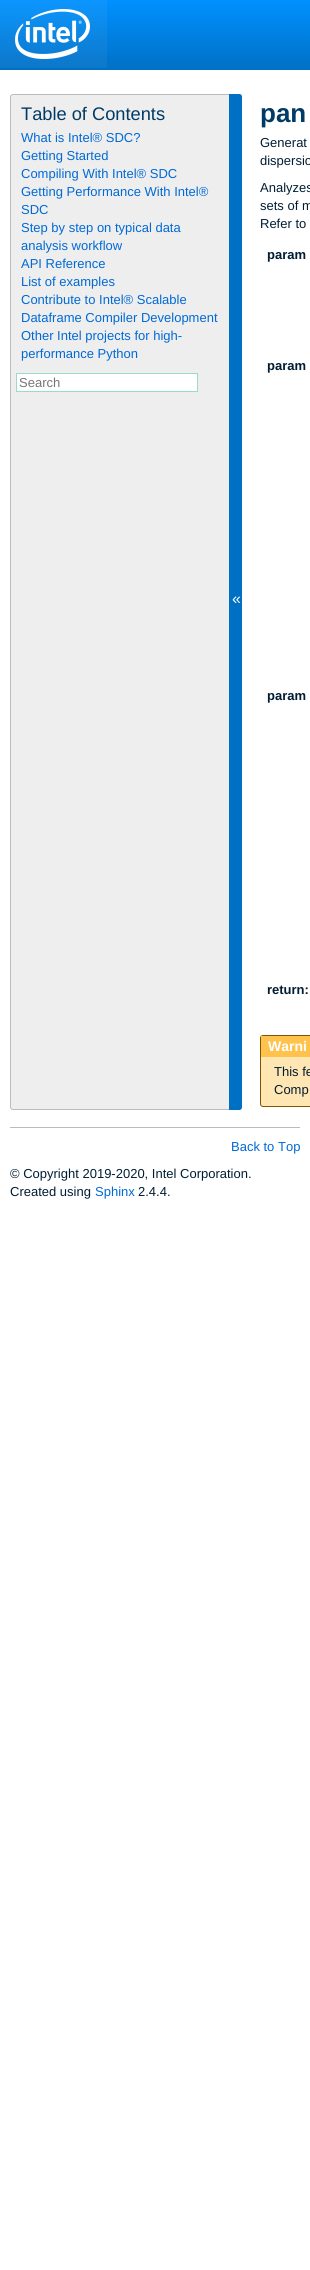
#include <cairo/cairo.h>
#include <math.h>
#include <stddef.h>


static void rounded_rect(cairo_t *cr, double x, double y, double w, double h, double r) {
  cairo_new_sub_path(cr);
  cairo_arc(cr, x + w - r, y + h - r, r, 0, M_PI / 2);
  cairo_arc(cr, x + r, y + h - r, r, M_PI / 2, M_PI);
  cairo_arc(cr, x + r, y + r, r, M_PI, 1.5 * M_PI);
  cairo_arc(cr, x + w - r, y + r, r, 1.5 * M_PI, 2 * M_PI);
  cairo_close_path(cr);
}

static void draw_image(cairo_t *cr, const char *path, double x, double y, double w, double h) {
  cairo_surface_t *image = cairo_image_surface_create_from_png(path);
  cairo_save(cr);
  cairo_set_source_surface(cr, image, x, y);
  cairo_rectangle(cr, x, y, w, h);
  cairo_fill(cr);
  cairo_restore(cr);
  cairo_surface_destroy(image);
}

static void draw(cairo_t *cr) {
  cairo_pattern_t *gradient;
  cairo_set_source_rgb(cr, 1, 1, 1);
  cairo_paint(cr);
  gradient = cairo_pattern_create_linear(165, 70, 165, 0);
  cairo_pattern_add_color_stop_rgba(gradient, 0, 0, 112 / 255.0, 197 / 255.0, 1);
  cairo_pattern_add_color_stop_rgba(gradient, 1, 0, 145 / 255.0, 1, 1);
  cairo_set_source(cr, gradient);
  cairo_pattern_destroy(gradient);
  cairo_rectangle(cr, 0, 0, 310, 70);
  cairo_fill(cr);
  cairo_set_source_rgba(cr, 1, 1, 1, 0.05);
  cairo_rectangle(cr, 0, 0, 107, 68);
  cairo_fill(cr);
  draw_image(cr, "images/1.png", 15, 9, 75, 50);
  cairo_set_source_rgb(cr, 238 / 255.0, 238 / 255.0, 238 / 255.0);
  rounded_rect(cr, 10.5, 94.5, 231, 1015, 2.5);
  cairo_fill_preserve(cr);
  cairo_set_source_rgb(cr, 187 / 255.0, 187 / 255.0, 187 / 255.0);
  cairo_set_line_width(cr, 1);
  cairo_stroke(cr);
  cairo_set_source_rgb(cr, 1, 1, 1);
  cairo_rectangle(cr, 16.5, 373.5, 181, 18);
  cairo_fill_preserve(cr);
  cairo_set_source_rgb(cr, 152 / 255.0, 219 / 255.0, 204 / 255.0);
  cairo_stroke(cr);
  cairo_set_source_rgb(cr, 0, 112 / 255.0, 197 / 255.0);
  cairo_new_path(cr);
  cairo_move_to(cr, 229.5, 94.5);
  cairo_line_to(cr, 239, 94.5);
  cairo_curve_to(cr, 240.5, 94.5, 241.5, 95.5, 241.5, 97);
  cairo_line_to(cr, 241.5, 1107);
  cairo_curve_to(cr, 241.5, 1108.5, 240.5, 1109.5, 239, 1109.5);
  cairo_line_to(cr, 229.5, 1109.5);
  cairo_close_path(cr);
  cairo_fill_preserve(cr);
  cairo_stroke(cr);
  cairo_set_source_rgb(cr, 1, 230 / 255.0, 179 / 255.0);
  rounded_rect(cr, 260.5, 1035.5, 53, 71, 2.5);
  cairo_fill_preserve(cr);
  cairo_set_source_rgb(cr, 128 / 255.0, 85 / 255.0, 0);
  cairo_stroke(cr);
  cairo_set_source_rgb(cr, 1, 195 / 255.0, 77 / 255.0);
  cairo_rectangle(cr, 261, 1036, 49, 21);
  cairo_fill(cr);
  cairo_set_source_rgb(cr, 187 / 255.0, 187 / 255.0, 187 / 255.0);
  cairo_rectangle(cr, 10, 1127, 290, 1);
  cairo_fill(cr);
  cairo_select_font_face(cr, "Liberation Sans", CAIRO_FONT_SLANT_NORMAL, CAIRO_FONT_WEIGHT_NORMAL);
  cairo_set_font_size(cr, 18.25);
  cairo_set_source_rgb(cr, 0, 58 / 255.0, 102 / 255.0);
  cairo_move_to(cr, 21, 120);
  cairo_show_text(cr, "Table of Contents");
  cairo_set_font_size(cr, 13);
  cairo_set_source_rgb(cr, 0, 105 / 255.0, 214 / 255.0);
  cairo_move_to(cr, 21, 142);
  cairo_show_text(cr, "What is Intel® SDC?");
  cairo_move_to(cr, 21, 160);
  cairo_show_text(cr, "Getting Started");
  cairo_move_to(cr, 21, 178);
  cairo_show_text(cr, "Compiling With Intel® SDC");
  cairo_move_to(cr, 21, 196);
  cairo_show_text(cr, "Getting Performance With Intel®");
  cairo_move_to(cr, 21, 214);
  cairo_show_text(cr, "SDC");
  cairo_move_to(cr, 21, 232);
  cairo_show_text(cr, "Step by step on typical data");
  cairo_move_to(cr, 21, 250);
  cairo_show_text(cr, "analysis workflow");
  cairo_move_to(cr, 21, 268);
  cairo_show_text(cr, "API Reference");
  cairo_move_to(cr, 21, 286);
  cairo_show_text(cr, "List of examples");
  cairo_move_to(cr, 21, 304);
  cairo_show_text(cr, "Contribute to Intel® Scalable");
  cairo_move_to(cr, 21, 322);
  cairo_show_text(cr, "Dataframe Compiler Development");
  cairo_move_to(cr, 21, 340);
  cairo_show_text(cr, "Other Intel projects for high-");
  cairo_move_to(cr, 21, 358);
  cairo_show_text(cr, "performance Python");
  cairo_set_source_rgb(cr, 117 / 255.0, 117 / 255.0, 117 / 255.0);
  cairo_move_to(cr, 19, 387);
  cairo_show_text(cr, "Search");
  cairo_set_font_size(cr, 16);
  cairo_set_source_rgb(cr, 1, 1, 1);
  cairo_move_to(cr, 232, 604);
  cairo_show_text(cr, "«");
  cairo_select_font_face(cr, "Liberation Sans", CAIRO_FONT_SLANT_NORMAL, CAIRO_FONT_WEIGHT_BOLD);
  cairo_set_font_size(cr, 26);
  cairo_set_source_rgb(cr, 0, 58 / 255.0, 102 / 255.0);
  cairo_move_to(cr, 260, 122);
  cairo_show_text(cr, "pan");
  cairo_select_font_face(cr, "Liberation Sans", CAIRO_FONT_SLANT_NORMAL, CAIRO_FONT_WEIGHT_NORMAL);
  cairo_set_font_size(cr, 13);
  cairo_set_source_rgb(cr, 0, 29 / 255.0, 51 / 255.0);
  cairo_move_to(cr, 260, 147);
  cairo_show_text(cr, "Generat");
  cairo_move_to(cr, 260, 165);
  cairo_show_text(cr, "dispersio");
  cairo_move_to(cr, 260, 192);
  cairo_show_text(cr, "Analyzes");
  cairo_move_to(cr, 260, 210);
  cairo_show_text(cr, "sets of m");
  cairo_move_to(cr, 260, 228);
  cairo_show_text(cr, "Refer to");
  cairo_select_font_face(cr, "Liberation Sans", CAIRO_FONT_SLANT_NORMAL, CAIRO_FONT_WEIGHT_BOLD);
  cairo_move_to(cr, 267, 259);
  cairo_show_text(cr, "param");
  cairo_move_to(cr, 267, 370);
  cairo_show_text(cr, "param");
  cairo_move_to(cr, 267, 700);
  cairo_show_text(cr, "param");
  cairo_move_to(cr, 267, 994);
  cairo_show_text(cr, "return:");
  cairo_set_font_size(cr, 14);
  cairo_set_source_rgb(cr, 1, 1, 1);
  cairo_move_to(cr, 268, 1051);
  cairo_show_text(cr, "Warni");
  cairo_select_font_face(cr, "Liberation Sans", CAIRO_FONT_SLANT_NORMAL, CAIRO_FONT_WEIGHT_NORMAL);
  cairo_set_font_size(cr, 13);
  cairo_set_source_rgb(cr, 0, 29 / 255.0, 51 / 255.0);
  cairo_move_to(cr, 274, 1076);
  cairo_show_text(cr, "This fe");
  cairo_move_to(cr, 274, 1094);
  cairo_show_text(cr, "Comp");
  cairo_set_source_rgb(cr, 0, 105 / 255.0, 214 / 255.0);
  cairo_move_to(cr, 231, 1151);
  cairo_show_text(cr, "Back to Top");
  cairo_set_source_rgb(cr, 0, 29 / 255.0, 51 / 255.0);
  cairo_move_to(cr, 10, 1178);
  cairo_show_text(cr, "© Copyright 2019-2020, Intel Corporation.");
  cairo_move_to(cr, 10, 1196);
  cairo_show_text(cr, "Created using");
  cairo_set_source_rgb(cr, 0, 105 / 255.0, 214 / 255.0);
  cairo_move_to(cr, 95, 1196);
  cairo_show_text(cr, "Sphinx");
  cairo_set_source_rgb(cr, 0, 29 / 255.0, 51 / 255.0);
  cairo_move_to(cr, 138, 1196);
  cairo_show_text(cr, "2.4.4.");
}

int main(void) {
  cairo_surface_t *surface = cairo_image_surface_create(CAIRO_FORMAT_RGB24, 310, 2270);
  cairo_t *cr = cairo_create(surface);
  cairo_font_options_t *options = cairo_font_options_create();
  cairo_font_options_set_hint_metrics(options, CAIRO_HINT_METRICS_OFF);
  cairo_font_options_set_hint_style(options, CAIRO_HINT_STYLE_NONE);
  cairo_set_font_options(cr, options);
  cairo_set_miter_limit(cr, 4);
  draw(cr);
  cairo_surface_write_to_png(surface, "out.png");
  cairo_font_options_destroy(options);
  cairo_destroy(cr);
  cairo_surface_destroy(surface);
  return 0;
}
